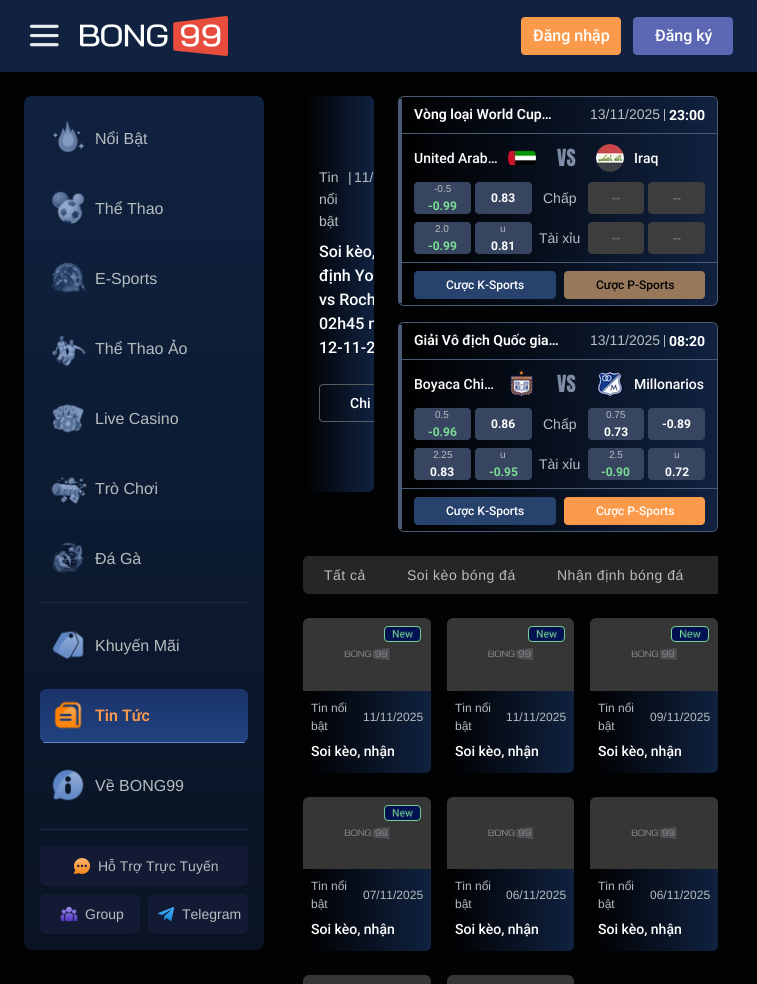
#include <cairo/cairo.h>
#include <math.h>
#include <stddef.h>


static void draw_spaced(cairo_t *cr, double x, double y, const char *s, double letter, double word) {
  cairo_move_to(cr, x, y);
  while (*s) {
    char ch[5] = {0};
    int n = 0;
    do ch[n++] = *s++; while ((*s & 0xC0) == 0x80);
    cairo_show_text(cr, ch);
    cairo_rel_move_to(cr, letter + word * (*ch == ' '), 0);
  }
}

static void rounded_rect(cairo_t *cr, double x, double y, double w, double h, double r) {
  cairo_new_sub_path(cr);
  cairo_arc(cr, x + w - r, y + h - r, r, 0, M_PI / 2);
  cairo_arc(cr, x + r, y + h - r, r, M_PI / 2, M_PI);
  cairo_arc(cr, x + r, y + r, r, M_PI, 1.5 * M_PI);
  cairo_arc(cr, x + w - r, y + r, r, 1.5 * M_PI, 2 * M_PI);
  cairo_close_path(cr);
}

static void draw_image(cairo_t *cr, const char *path, double x, double y, double w, double h) {
  cairo_surface_t *image = cairo_image_surface_create_from_png(path);
  cairo_save(cr);
  cairo_set_source_surface(cr, image, x, y);
  cairo_rectangle(cr, x, y, w, h);
  cairo_fill(cr);
  cairo_restore(cr);
  cairo_surface_destroy(image);
}

static void draw(cairo_t *cr) {
  cairo_pattern_t *gradient;
  cairo_set_source_rgb(cr, 1 / 255.0, 2 / 255.0, 4 / 255.0);
  cairo_paint(cr);
  cairo_set_source_rgb(cr, 16 / 255.0, 34 / 255.0, 64 / 255.0);
  cairo_rectangle(cr, 0, 0, 757, 72);
  cairo_fill(cr);
  draw_image(cr, "images/1.png", 29, 24, 30, 23);
  draw_image(cr, "images/2.png", 80, 16, 148, 40);
  cairo_set_source_rgb(cr, 251 / 255.0, 154 / 255.0, 75 / 255.0);
  rounded_rect(cr, 521, 17, 100, 38, 4);
  cairo_fill(cr);
  cairo_set_source_rgb(cr, 91 / 255.0, 103 / 255.0, 179 / 255.0);
  rounded_rect(cr, 633, 17, 100, 38, 4);
  cairo_fill(cr);
  gradient = cairo_pattern_create_linear(144, 96, 144, 950);
  cairo_pattern_add_color_stop_rgba(gradient, 0, 16 / 255.0, 34 / 255.0, 64 / 255.0, 1);
  cairo_pattern_add_color_stop_rgba(gradient, 1, 9 / 255.0, 19 / 255.0, 35 / 255.0, 1);
  cairo_set_source(cr, gradient);
  cairo_pattern_destroy(gradient);
  rounded_rect(cr, 24, 96, 240, 854, 8);
  cairo_fill(cr);
  draw_image(cr, "images/3.png", 53, 121, 32, 31);
  draw_image(cr, "images/4.png", 51, 191, 34, 33);
  draw_image(cr, "images/5.png", 51, 262, 35, 31);
  draw_image(cr, "images/6.png", 52, 335, 34, 32);
  draw_image(cr, "images/7.png", 52, 404, 32, 29);
  draw_image(cr, "images/8.png", 51, 477, 36, 27);
  draw_image(cr, "images/9.png", 52, 542, 32, 32);
  cairo_set_source_rgb(cr, 31 / 255.0, 42 / 255.0, 65 / 255.0);
  cairo_rectangle(cr, 40, 602, 208, 1);
  cairo_fill(cr);
  draw_image(cr, "images/10.png", 52, 630, 32, 29);
  cairo_set_source_rgb(cr, 26 / 255.0, 51 / 255.0, 104 / 255.0);
  cairo_new_path(cr);
  cairo_move_to(cr, 46, 689);
  cairo_line_to(cr, 242, 689);
  cairo_curve_to(cr, 245, 689, 248, 692, 248, 695);
  cairo_line_to(cr, 248, 737);
  cairo_curve_to(cr, 248, 740, 245, 742, 242, 742);
  cairo_line_to(cr, 46, 742);
  cairo_curve_to(cr, 43, 742, 40, 740, 40, 737);
  cairo_line_to(cr, 40, 695);
  cairo_curve_to(cr, 40, 692, 43, 689, 46, 689);
  cairo_close_path(cr);
  cairo_fill(cr);
  gradient = cairo_pattern_create_linear(144, 689, 144, 742);
  cairo_pattern_add_color_stop_rgba(gradient, 0, 44 / 255.0, 91 / 255.0, 167 / 255.0, 0);
  cairo_pattern_add_color_stop_rgba(gradient, 1, 44 / 255.0, 91 / 255.0, 167 / 255.0, 0.4);
  cairo_set_source(cr, gradient);
  cairo_pattern_destroy(gradient);
  cairo_new_path(cr);
  cairo_move_to(cr, 46, 689);
  cairo_line_to(cr, 242, 689);
  cairo_curve_to(cr, 245, 689, 248, 692, 248, 695);
  cairo_line_to(cr, 248, 737);
  cairo_curve_to(cr, 248, 740, 245, 742, 242, 742);
  cairo_line_to(cr, 46, 742);
  cairo_curve_to(cr, 43, 742, 40, 740, 40, 737);
  cairo_line_to(cr, 40, 695);
  cairo_curve_to(cr, 40, 692, 43, 689, 46, 689);
  cairo_close_path(cr);
  cairo_fill(cr);
  cairo_set_source_rgb(cr, 94 / 255.0, 133 / 255.0, 197 / 255.0);
  cairo_rectangle(cr, 43, 742, 202, 1);
  cairo_fill(cr);
  draw_image(cr, "images/11.png", 54, 701, 28, 28);
  draw_image(cr, "images/12.png", 52, 769, 32, 32);
  cairo_set_source_rgb(cr, 31 / 255.0, 42 / 255.0, 65 / 255.0);
  cairo_rectangle(cr, 40, 829, 208, 1);
  cairo_fill(cr);
  cairo_set_source_rgb(cr, 19 / 255.0, 26 / 255.0, 52 / 255.0);
  rounded_rect(cr, 40, 846, 208, 40, 6);
  cairo_fill(cr);
  draw_image(cr, "images/13.png", 74, 858, 16, 16);
  rounded_rect(cr, 40, 894, 100, 40, 6);
  cairo_fill(cr);
  draw_image(cr, "images/14.png", 60, 906, 18, 16);
  rounded_rect(cr, 148, 894, 100, 40, 6);
  cairo_fill(cr);
  draw_image(cr, "images/15.png", 158, 907, 16, 14);
  gradient = cairo_pattern_create_linear(303, 294, 374, 294);
  cairo_pattern_add_color_stop_rgba(gradient, 0, 0, 0, 0, 1);
  cairo_pattern_add_color_stop_rgba(gradient, 1, 16 / 255.0, 34 / 255.0, 64 / 255.0, 1);
  cairo_set_source(cr, gradient);
  cairo_pattern_destroy(gradient);
  rounded_rect(cr, 303, 96, 71, 396, 6);
  cairo_fill(cr);
  gradient = cairo_pattern_create_linear(402, 201, 717, 201);
  cairo_pattern_add_color_stop_rgba(gradient, 0, 0, 0, 0, 1);
  cairo_pattern_add_color_stop_rgba(gradient, 1, 16 / 255.0, 34 / 255.0, 64 / 255.0, 1);
  cairo_set_source(cr, gradient);
  cairo_pattern_destroy(gradient);
  cairo_new_path(cr);
  cairo_move_to(cr, 404, 97);
  cairo_line_to(cr, 712, 97);
  cairo_curve_to(cr, 715, 97, 717, 99, 717, 102);
  cairo_line_to(cr, 717, 300);
  cairo_curve_to(cr, 717, 303, 715, 305, 712, 305);
  cairo_line_to(cr, 404, 305);
  cairo_curve_to(cr, 403, 305, 402, 303, 402, 300);
  cairo_line_to(cr, 402, 102);
  cairo_curve_to(cr, 402, 99, 403, 97, 404, 97);
  cairo_close_path(cr);
  cairo_fill(cr);
  rounded_rect(cr, 398.5, 96.5, 319, 209, 5.5);
  cairo_set_source_rgb(cr, 73 / 255.0, 90 / 255.0, 117 / 255.0);
  cairo_set_line_width(cr, 1);
  cairo_stroke(cr);
  cairo_rectangle(cr, 399, 99, 3, 204);
  cairo_fill(cr);
  cairo_rectangle(cr, 402, 133, 315, 1);
  cairo_fill(cr);
  cairo_set_source_rgb(cr, 182 / 255.0, 188 / 255.0, 191 / 255.0);
  cairo_rectangle(cr, 664, 109, 1, 12);
  cairo_fill(cr);
  draw_image(cr, "images/16.png", 508, 150, 28, 16);
  draw_image(cr, "images/17.png", 596, 144, 28, 28);
  cairo_set_source_rgb(cr, 73 / 255.0, 90 / 255.0, 117 / 255.0);
  cairo_rectangle(cr, 402, 262, 315, 1);
  cairo_fill(cr);
  cairo_set_source_rgb(cr, 56 / 255.0, 69 / 255.0, 96 / 255.0);
  rounded_rect(cr, 414, 182, 57, 32, 4);
  cairo_fill(cr);
  rounded_rect(cr, 475, 182, 57, 32, 4);
  cairo_fill(cr);
  cairo_set_source_rgb(cr, 61 / 255.0, 61 / 255.0, 61 / 255.0);
  rounded_rect(cr, 588, 182, 56, 32, 4);
  cairo_fill(cr);
  rounded_rect(cr, 648, 182, 57, 32, 4);
  cairo_fill(cr);
  cairo_set_source_rgb(cr, 56 / 255.0, 69 / 255.0, 96 / 255.0);
  rounded_rect(cr, 414, 222, 57, 32, 4);
  cairo_fill(cr);
  rounded_rect(cr, 475, 222, 57, 32, 4);
  cairo_fill(cr);
  cairo_set_source_rgb(cr, 61 / 255.0, 61 / 255.0, 61 / 255.0);
  rounded_rect(cr, 588, 222, 56, 32, 4);
  cairo_fill(cr);
  rounded_rect(cr, 648, 222, 57, 32, 4);
  cairo_fill(cr);
  cairo_set_source_rgb(cr, 39 / 255.0, 66 / 255.0, 109 / 255.0);
  rounded_rect(cr, 414, 271, 142, 28, 4);
  cairo_fill(cr);
  cairo_set_source_rgb(cr, 152 / 255.0, 120 / 255.0, 90 / 255.0);
  rounded_rect(cr, 564, 271, 141, 28, 4);
  cairo_fill(cr);
  gradient = cairo_pattern_create_linear(402, 427, 717, 427);
  cairo_pattern_add_color_stop_rgba(gradient, 0, 0, 0, 0, 1);
  cairo_pattern_add_color_stop_rgba(gradient, 1, 16 / 255.0, 34 / 255.0, 64 / 255.0, 1);
  cairo_set_source(cr, gradient);
  cairo_pattern_destroy(gradient);
  cairo_new_path(cr);
  cairo_move_to(cr, 404, 323);
  cairo_line_to(cr, 712, 323);
  cairo_curve_to(cr, 715, 323, 717, 325, 717, 328);
  cairo_line_to(cr, 717, 526);
  cairo_curve_to(cr, 717, 529, 715, 531, 712, 531);
  cairo_line_to(cr, 404, 531);
  cairo_curve_to(cr, 403, 531, 402, 529, 402, 526);
  cairo_line_to(cr, 402, 328);
  cairo_curve_to(cr, 402, 325, 403, 323, 404, 323);
  cairo_close_path(cr);
  cairo_fill(cr);
  rounded_rect(cr, 398.5, 322.5, 319, 209, 5.5);
  cairo_set_source_rgb(cr, 73 / 255.0, 90 / 255.0, 117 / 255.0);
  cairo_stroke(cr);
  cairo_rectangle(cr, 399, 325, 3, 204);
  cairo_fill(cr);
  cairo_rectangle(cr, 402, 359, 315, 1);
  cairo_fill(cr);
  cairo_set_source_rgb(cr, 182 / 255.0, 188 / 255.0, 191 / 255.0);
  cairo_rectangle(cr, 664, 335, 1, 12);
  cairo_fill(cr);
  draw_image(cr, "images/18.png", 510, 370, 23, 28);
  draw_image(cr, "images/19.png", 597, 370, 26, 28);
  cairo_set_source_rgb(cr, 73 / 255.0, 90 / 255.0, 117 / 255.0);
  cairo_rectangle(cr, 402, 488, 315, 1);
  cairo_fill(cr);
  cairo_set_source_rgb(cr, 56 / 255.0, 69 / 255.0, 96 / 255.0);
  rounded_rect(cr, 414, 408, 57, 32, 4);
  cairo_fill(cr);
  rounded_rect(cr, 475, 408, 57, 32, 4);
  cairo_fill(cr);
  rounded_rect(cr, 588, 408, 56, 32, 4);
  cairo_fill(cr);
  rounded_rect(cr, 648, 408, 57, 32, 4);
  cairo_fill(cr);
  rounded_rect(cr, 414, 448, 57, 32, 4);
  cairo_fill(cr);
  rounded_rect(cr, 475, 448, 57, 32, 4);
  cairo_fill(cr);
  rounded_rect(cr, 588, 448, 56, 32, 4);
  cairo_fill(cr);
  rounded_rect(cr, 648, 448, 57, 32, 4);
  cairo_fill(cr);
  cairo_set_source_rgb(cr, 39 / 255.0, 66 / 255.0, 109 / 255.0);
  rounded_rect(cr, 414, 497, 142, 28, 4);
  cairo_fill(cr);
  cairo_set_source_rgb(cr, 251 / 255.0, 154 / 255.0, 75 / 255.0);
  rounded_rect(cr, 564, 497, 141, 28, 4);
  cairo_fill(cr);
  cairo_set_source_rgb(cr, 38 / 255.0, 38 / 255.0, 38 / 255.0);
  cairo_new_path(cr);
  cairo_move_to(cr, 309, 556);
  cairo_line_to(cr, 718, 556);
  cairo_line_to(cr, 718, 594);
  cairo_line_to(cr, 309, 594);
  cairo_curve_to(cr, 305.5, 594, 303, 591.5, 303, 588);
  cairo_line_to(cr, 303, 562);
  cairo_curve_to(cr, 303, 558.5, 305.5, 556, 309, 556);
  cairo_close_path(cr);
  cairo_fill(cr);
  draw_image(cr, "images/20.png", 303, 618, 128, 73);
  draw_image(cr, "images/21.png", 384, 626, 37, 16);
  gradient = cairo_pattern_create_linear(303, 732, 431, 732);
  cairo_pattern_add_color_stop_rgba(gradient, 0, 0, 0, 0, 1);
  cairo_pattern_add_color_stop_rgba(gradient, 1, 16 / 255.0, 34 / 255.0, 64 / 255.0, 1);
  cairo_set_source(cr, gradient);
  cairo_pattern_destroy(gradient);
  cairo_new_path(cr);
  cairo_move_to(cr, 303, 691);
  cairo_line_to(cr, 431, 691);
  cairo_line_to(cr, 431, 767);
  cairo_curve_to(cr, 431, 770.5, 428.5, 773, 425, 773);
  cairo_line_to(cr, 309, 773);
  cairo_curve_to(cr, 305.5, 773, 303, 770.5, 303, 767);
  cairo_close_path(cr);
  cairo_fill(cr);
  draw_image(cr, "images/22.png", 447, 618, 127, 73);
  draw_image(cr, "images/21.png", 528, 626, 37, 16);
  gradient = cairo_pattern_create_linear(447, 732, 574, 732);
  cairo_pattern_add_color_stop_rgba(gradient, 0, 0, 0, 0, 1);
  cairo_pattern_add_color_stop_rgba(gradient, 1, 16 / 255.0, 34 / 255.0, 64 / 255.0, 1);
  cairo_set_source(cr, gradient);
  cairo_pattern_destroy(gradient);
  cairo_new_path(cr);
  cairo_move_to(cr, 447, 691);
  cairo_line_to(cr, 574, 691);
  cairo_line_to(cr, 574, 767);
  cairo_curve_to(cr, 574, 770.5, 571.5, 773, 568, 773);
  cairo_line_to(cr, 453, 773);
  cairo_curve_to(cr, 449.5, 773, 447, 770.5, 447, 767);
  cairo_close_path(cr);
  cairo_fill(cr);
  draw_image(cr, "images/20.png", 590, 618, 128, 73);
  draw_image(cr, "images/23.png", 671, 626, 38, 16);
  gradient = cairo_pattern_create_linear(590, 732, 718, 732);
  cairo_pattern_add_color_stop_rgba(gradient, 0, 0, 0, 0, 1);
  cairo_pattern_add_color_stop_rgba(gradient, 1, 16 / 255.0, 34 / 255.0, 64 / 255.0, 1);
  cairo_set_source(cr, gradient);
  cairo_pattern_destroy(gradient);
  cairo_new_path(cr);
  cairo_move_to(cr, 590, 691);
  cairo_line_to(cr, 718, 691);
  cairo_line_to(cr, 718, 767);
  cairo_curve_to(cr, 718, 770.5, 715.5, 773, 712, 773);
  cairo_line_to(cr, 596, 773);
  cairo_curve_to(cr, 592.5, 773, 590, 770.5, 590, 767);
  cairo_close_path(cr);
  cairo_fill(cr);
  draw_image(cr, "images/24.png", 303, 797, 128, 72);
  draw_image(cr, "images/21.png", 384, 805, 37, 16);
  gradient = cairo_pattern_create_linear(303, 910, 431, 910);
  cairo_pattern_add_color_stop_rgba(gradient, 0, 0, 0, 0, 1);
  cairo_pattern_add_color_stop_rgba(gradient, 1, 16 / 255.0, 34 / 255.0, 64 / 255.0, 1);
  cairo_set_source(cr, gradient);
  cairo_pattern_destroy(gradient);
  cairo_new_path(cr);
  cairo_move_to(cr, 303, 869);
  cairo_line_to(cr, 431, 869);
  cairo_line_to(cr, 431, 945);
  cairo_curve_to(cr, 431, 948.5, 428.5, 951, 425, 951);
  cairo_line_to(cr, 309, 951);
  cairo_curve_to(cr, 305.5, 951, 303, 948.5, 303, 945);
  cairo_close_path(cr);
  cairo_fill(cr);
  draw_image(cr, "images/25.png", 447, 797, 127, 72);
  gradient = cairo_pattern_create_linear(447, 910, 574, 910);
  cairo_pattern_add_color_stop_rgba(gradient, 0, 0, 0, 0, 1);
  cairo_pattern_add_color_stop_rgba(gradient, 1, 16 / 255.0, 34 / 255.0, 64 / 255.0, 1);
  cairo_set_source(cr, gradient);
  cairo_pattern_destroy(gradient);
  cairo_new_path(cr);
  cairo_move_to(cr, 447, 869);
  cairo_line_to(cr, 574, 869);
  cairo_line_to(cr, 574, 945);
  cairo_curve_to(cr, 574, 948.5, 571.5, 951, 568, 951);
  cairo_line_to(cr, 453, 951);
  cairo_curve_to(cr, 449.5, 951, 447, 948.5, 447, 945);
  cairo_close_path(cr);
  cairo_fill(cr);
  draw_image(cr, "images/24.png", 590, 797, 128, 72);
  gradient = cairo_pattern_create_linear(590, 910, 718, 910);
  cairo_pattern_add_color_stop_rgba(gradient, 0, 0, 0, 0, 1);
  cairo_pattern_add_color_stop_rgba(gradient, 1, 16 / 255.0, 34 / 255.0, 64 / 255.0, 1);
  cairo_set_source(cr, gradient);
  cairo_pattern_destroy(gradient);
  cairo_new_path(cr);
  cairo_move_to(cr, 590, 869);
  cairo_line_to(cr, 718, 869);
  cairo_line_to(cr, 718, 945);
  cairo_curve_to(cr, 718, 948.5, 715.5, 951, 712, 951);
  cairo_line_to(cr, 596, 951);
  cairo_curve_to(cr, 592.5, 951, 590, 948.5, 590, 945);
  cairo_close_path(cr);
  cairo_fill(cr);
  draw_image(cr, "images/26.png", 303, 975, 128, 9);
  draw_image(cr, "images/27.png", 447, 975, 127, 9);
  cairo_select_font_face(cr, "Roboto Medium", CAIRO_FONT_SLANT_NORMAL, CAIRO_FONT_WEIGHT_NORMAL);
  cairo_set_font_size(cr, 16);
  cairo_set_source_rgb(cr, 1, 1, 1);
  cairo_move_to(cr, 533, 41);
  cairo_show_text(cr, "Đăng nhập");
  cairo_move_to(cr, 655, 41);
  cairo_show_text(cr, "Đăng ký");
  cairo_select_font_face(cr, "Liberation Sans", CAIRO_FONT_SLANT_NORMAL, CAIRO_FONT_WEIGHT_NORMAL);
  cairo_set_source_rgb(cr, 182 / 255.0, 188 / 255.0, 191 / 255.0);
  cairo_move_to(cr, 95, 144);
  cairo_show_text(cr, "Nổi Bật");
  cairo_move_to(cr, 95, 214);
  cairo_show_text(cr, "Thể Thao");
  cairo_move_to(cr, 95, 284);
  cairo_show_text(cr, "E-Sports");
  cairo_move_to(cr, 95, 354);
  cairo_show_text(cr, "Thể Thao Ảo");
  cairo_move_to(cr, 95, 424);
  cairo_show_text(cr, "Live Casino");
  cairo_move_to(cr, 95, 494);
  cairo_show_text(cr, "Trò Chơi");
  cairo_move_to(cr, 95, 564);
  cairo_show_text(cr, "Đá Gà");
  cairo_move_to(cr, 95, 651);
  cairo_show_text(cr, "Khuyến Mãi");
  cairo_select_font_face(cr, "Roboto SemiBold", CAIRO_FONT_SLANT_NORMAL, CAIRO_FONT_WEIGHT_NORMAL);
  cairo_set_source_rgb(cr, 251 / 255.0, 154 / 255.0, 75 / 255.0);
  cairo_move_to(cr, 95, 721);
  cairo_show_text(cr, "Tin Tức");
  cairo_select_font_face(cr, "Liberation Sans", CAIRO_FONT_SLANT_NORMAL, CAIRO_FONT_WEIGHT_NORMAL);
  cairo_set_source_rgb(cr, 182 / 255.0, 188 / 255.0, 191 / 255.0);
  cairo_move_to(cr, 95, 791);
  cairo_show_text(cr, "Về BONG99");
  cairo_set_font_size(cr, 14);
  cairo_move_to(cr, 98, 871);
  cairo_show_text(cr, "Hỗ Trợ Trực Tuyến");
  cairo_move_to(cr, 85, 919);
  cairo_show_text(cr, "Group");
  cairo_move_to(cr, 182, 919);
  cairo_show_text(cr, "Telegram");
  cairo_move_to(cr, 319, 182);
  cairo_show_text(cr, "Tin");
  cairo_move_to(cr, 319, 204);
  cairo_show_text(cr, "nổi");
  cairo_move_to(cr, 319, 226);
  cairo_show_text(cr, "bật");
  cairo_move_to(cr, 348, 182);
  cairo_show_text(cr, "|");
  cairo_move_to(cr, 354, 182);
  cairo_show_text(cr, "11/");
  cairo_save(cr);
  cairo_rectangle(cr, 303, 96, 71, 396);
  cairo_clip(cr);
  cairo_select_font_face(cr, "Roboto Medium", CAIRO_FONT_SLANT_NORMAL, CAIRO_FONT_WEIGHT_NORMAL);
  cairo_set_font_size(cr, 16);
  cairo_set_source_rgb(cr, 1, 1, 1);
  cairo_move_to(cr, 319, 257);
  cairo_show_text(cr, "Soi kèo,");
  cairo_restore(cr);
  cairo_select_font_face(cr, "Roboto Medium", CAIRO_FONT_SLANT_NORMAL, CAIRO_FONT_WEIGHT_NORMAL);
  cairo_set_font_size(cr, 16);
  cairo_set_source_rgb(cr, 1, 1, 1);
  cairo_move_to(cr, 319, 281);
  cairo_show_text(cr, "định Yo");
  cairo_save(cr);
  cairo_rectangle(cr, 303, 96, 71, 396);
  cairo_clip(cr);
  cairo_move_to(cr, 319, 305);
  cairo_show_text(cr, "vs Roch");
  cairo_move_to(cr, 319, 329);
  cairo_show_text(cr, "02h45 n");
  cairo_move_to(cr, 319, 353);
  cairo_show_text(cr, "12-11-2");
  cairo_restore(cr);
  cairo_select_font_face(cr, "Roboto SemiBold", CAIRO_FONT_SLANT_NORMAL, CAIRO_FONT_WEIGHT_NORMAL);
  cairo_set_font_size(cr, 14);
  cairo_move_to(cr, 414, 119);
  cairo_show_text(cr, "Vòng loại World Cup…");
  cairo_select_font_face(cr, "Liberation Sans", CAIRO_FONT_SLANT_NORMAL, CAIRO_FONT_WEIGHT_NORMAL);
  cairo_set_source_rgb(cr, 182 / 255.0, 188 / 255.0, 191 / 255.0);
  cairo_move_to(cr, 590, 119);
  cairo_show_text(cr, "13/11/2025");
  cairo_select_font_face(cr, "Roboto", CAIRO_FONT_SLANT_NORMAL, CAIRO_FONT_WEIGHT_BOLD);
  cairo_set_source_rgb(cr, 1, 1, 1);
  cairo_move_to(cr, 669, 120);
  cairo_show_text(cr, "23:00");
  cairo_select_font_face(cr, "Roboto Medium", CAIRO_FONT_SLANT_NORMAL, CAIRO_FONT_WEIGHT_NORMAL);
  cairo_move_to(cr, 414, 163);
  cairo_show_text(cr, "United Arab…");
  cairo_select_font_face(cr, "Anton", CAIRO_FONT_SLANT_NORMAL, CAIRO_FONT_WEIGHT_NORMAL);
  cairo_set_font_size(cr, 20);
  cairo_set_source_rgb(cr, 126 / 255.0, 141 / 255.0, 165 / 255.0);
  cairo_move_to(cr, 557, 166);
  cairo_show_text(cr, "VS");
  cairo_select_font_face(cr, "Roboto Medium", CAIRO_FONT_SLANT_NORMAL, CAIRO_FONT_WEIGHT_NORMAL);
  cairo_set_font_size(cr, 14);
  cairo_set_source_rgb(cr, 1, 1, 1);
  cairo_move_to(cr, 634, 163);
  cairo_show_text(cr, "Iraq");
  cairo_select_font_face(cr, "Liberation Sans", CAIRO_FONT_SLANT_NORMAL, CAIRO_FONT_WEIGHT_NORMAL);
  cairo_set_font_size(cr, 10);
  cairo_set_source_rgb(cr, 182 / 255.0, 188 / 255.0, 191 / 255.0);
  cairo_move_to(cr, 434, 192);
  cairo_show_text(cr, "-0.5");
  cairo_select_font_face(cr, "Roboto", CAIRO_FONT_SLANT_NORMAL, CAIRO_FONT_WEIGHT_BOLD);
  cairo_set_font_size(cr, 12);
  cairo_set_source_rgb(cr, 122 / 255.0, 222 / 255.0, 148 / 255.0);
  cairo_move_to(cr, 428, 210);
  cairo_show_text(cr, "-0.99");
  cairo_set_source_rgb(cr, 1, 1, 1);
  cairo_move_to(cr, 491, 202);
  cairo_show_text(cr, "0.83");
  cairo_select_font_face(cr, "Liberation Sans", CAIRO_FONT_SLANT_NORMAL, CAIRO_FONT_WEIGHT_NORMAL);
  cairo_set_font_size(cr, 14);
  cairo_set_source_rgb(cr, 182 / 255.0, 188 / 255.0, 191 / 255.0);
  cairo_move_to(cr, 543, 203);
  cairo_show_text(cr, "Chấp");
  cairo_set_font_size(cr, 12);
  cairo_set_source_rgb(cr, 142 / 255.0, 147 / 255.0, 153 / 255.0);
  cairo_move_to(cr, 612, 202);
  cairo_show_text(cr, "--");
  cairo_move_to(cr, 673, 202);
  cairo_show_text(cr, "--");
  cairo_set_font_size(cr, 10);
  cairo_set_source_rgb(cr, 182 / 255.0, 188 / 255.0, 191 / 255.0);
  cairo_move_to(cr, 435, 232);
  cairo_show_text(cr, "2.0");
  cairo_select_font_face(cr, "Roboto", CAIRO_FONT_SLANT_NORMAL, CAIRO_FONT_WEIGHT_BOLD);
  cairo_set_font_size(cr, 12);
  cairo_set_source_rgb(cr, 122 / 255.0, 222 / 255.0, 148 / 255.0);
  cairo_move_to(cr, 428, 250);
  cairo_show_text(cr, "-0.99");
  cairo_select_font_face(cr, "Liberation Sans", CAIRO_FONT_SLANT_NORMAL, CAIRO_FONT_WEIGHT_NORMAL);
  cairo_set_font_size(cr, 10);
  cairo_set_source_rgb(cr, 182 / 255.0, 188 / 255.0, 191 / 255.0);
  cairo_move_to(cr, 500, 232);
  cairo_show_text(cr, "u");
  cairo_select_font_face(cr, "Roboto", CAIRO_FONT_SLANT_NORMAL, CAIRO_FONT_WEIGHT_BOLD);
  cairo_set_font_size(cr, 12);
  cairo_set_source_rgb(cr, 1, 1, 1);
  cairo_move_to(cr, 491, 250);
  cairo_show_text(cr, "0.81");
  cairo_select_font_face(cr, "Liberation Sans", CAIRO_FONT_SLANT_NORMAL, CAIRO_FONT_WEIGHT_NORMAL);
  cairo_set_font_size(cr, 14);
  cairo_set_source_rgb(cr, 182 / 255.0, 188 / 255.0, 191 / 255.0);
  cairo_move_to(cr, 539, 243);
  cairo_show_text(cr, "Tài xỉu");
  cairo_set_font_size(cr, 12);
  cairo_set_source_rgb(cr, 142 / 255.0, 147 / 255.0, 153 / 255.0);
  cairo_move_to(cr, 612, 242);
  cairo_show_text(cr, "--");
  cairo_move_to(cr, 673, 242);
  cairo_show_text(cr, "--");
  cairo_select_font_face(cr, "Roboto Medium", CAIRO_FONT_SLANT_NORMAL, CAIRO_FONT_WEIGHT_NORMAL);
  cairo_set_source_rgb(cr, 1, 1, 1);
  cairo_move_to(cr, 446, 289);
  cairo_show_text(cr, "Cược K-Sports");
  cairo_set_source_rgb(cr, 0, 0, 0);
  cairo_move_to(cr, 596, 289);
  cairo_show_text(cr, "Cược P-Sports");
  cairo_select_font_face(cr, "Roboto SemiBold", CAIRO_FONT_SLANT_NORMAL, CAIRO_FONT_WEIGHT_NORMAL);
  cairo_set_font_size(cr, 14);
  cairo_set_source_rgb(cr, 1, 1, 1);
  cairo_move_to(cr, 414, 345);
  cairo_show_text(cr, "Giải Vô địch Quốc gia…");
  cairo_select_font_face(cr, "Liberation Sans", CAIRO_FONT_SLANT_NORMAL, CAIRO_FONT_WEIGHT_NORMAL);
  cairo_set_source_rgb(cr, 182 / 255.0, 188 / 255.0, 191 / 255.0);
  cairo_move_to(cr, 590, 345);
  cairo_show_text(cr, "13/11/2025");
  cairo_select_font_face(cr, "Roboto", CAIRO_FONT_SLANT_NORMAL, CAIRO_FONT_WEIGHT_BOLD);
  cairo_set_source_rgb(cr, 1, 1, 1);
  cairo_move_to(cr, 669, 346);
  cairo_show_text(cr, "08:20");
  cairo_select_font_face(cr, "Roboto Medium", CAIRO_FONT_SLANT_NORMAL, CAIRO_FONT_WEIGHT_NORMAL);
  cairo_move_to(cr, 414, 389);
  cairo_show_text(cr, "Boyaca Chi…");
  cairo_save(cr);
  cairo_rectangle(cr, 303, 96, 71, 396);
  cairo_clip(cr);
  rounded_rect(cr, 319.5, 384.5, 104, 37, 3.5);
  cairo_set_source_rgb(cr, 88 / 255.0, 92 / 255.0, 94 / 255.0);
  cairo_stroke(cr);
  cairo_restore(cr);
  cairo_move_to(cr, 350, 408);
  cairo_show_text(cr, "Chi");
  cairo_select_font_face(cr, "Anton", CAIRO_FONT_SLANT_NORMAL, CAIRO_FONT_WEIGHT_NORMAL);
  cairo_set_font_size(cr, 20);
  cairo_set_source_rgb(cr, 126 / 255.0, 141 / 255.0, 165 / 255.0);
  cairo_move_to(cr, 557, 392);
  cairo_show_text(cr, "VS");
  cairo_select_font_face(cr, "Roboto Medium", CAIRO_FONT_SLANT_NORMAL, CAIRO_FONT_WEIGHT_NORMAL);
  cairo_set_font_size(cr, 14);
  cairo_set_source_rgb(cr, 1, 1, 1);
  cairo_move_to(cr, 634, 389);
  cairo_show_text(cr, "Millonarios");
  cairo_select_font_face(cr, "Liberation Sans", CAIRO_FONT_SLANT_NORMAL, CAIRO_FONT_WEIGHT_NORMAL);
  cairo_set_font_size(cr, 10);
  cairo_set_source_rgb(cr, 182 / 255.0, 188 / 255.0, 191 / 255.0);
  cairo_move_to(cr, 435, 418);
  cairo_show_text(cr, "0.5");
  cairo_select_font_face(cr, "Roboto", CAIRO_FONT_SLANT_NORMAL, CAIRO_FONT_WEIGHT_BOLD);
  cairo_set_font_size(cr, 12);
  cairo_set_source_rgb(cr, 122 / 255.0, 222 / 255.0, 148 / 255.0);
  cairo_move_to(cr, 428, 436);
  cairo_show_text(cr, "-0.96");
  cairo_set_source_rgb(cr, 1, 1, 1);
  cairo_move_to(cr, 491, 428);
  cairo_show_text(cr, "0.86");
  cairo_select_font_face(cr, "Liberation Sans", CAIRO_FONT_SLANT_NORMAL, CAIRO_FONT_WEIGHT_NORMAL);
  cairo_set_font_size(cr, 14);
  cairo_set_source_rgb(cr, 182 / 255.0, 188 / 255.0, 191 / 255.0);
  cairo_move_to(cr, 543, 429);
  cairo_show_text(cr, "Chấp");
  cairo_set_font_size(cr, 10);
  cairo_move_to(cr, 606, 418);
  cairo_show_text(cr, "0.75");
  cairo_select_font_face(cr, "Roboto", CAIRO_FONT_SLANT_NORMAL, CAIRO_FONT_WEIGHT_BOLD);
  cairo_set_font_size(cr, 12);
  cairo_set_source_rgb(cr, 1, 1, 1);
  cairo_move_to(cr, 604, 436);
  cairo_show_text(cr, "0.73");
  cairo_move_to(cr, 662, 428);
  cairo_show_text(cr, "-0.89");
  cairo_select_font_face(cr, "Liberation Sans", CAIRO_FONT_SLANT_NORMAL, CAIRO_FONT_WEIGHT_NORMAL);
  cairo_set_font_size(cr, 10);
  cairo_set_source_rgb(cr, 182 / 255.0, 188 / 255.0, 191 / 255.0);
  cairo_move_to(cr, 433, 458);
  cairo_show_text(cr, "2.25");
  cairo_select_font_face(cr, "Roboto", CAIRO_FONT_SLANT_NORMAL, CAIRO_FONT_WEIGHT_BOLD);
  cairo_set_font_size(cr, 12);
  cairo_set_source_rgb(cr, 1, 1, 1);
  cairo_move_to(cr, 430, 476);
  cairo_show_text(cr, "0.83");
  cairo_select_font_face(cr, "Liberation Sans", CAIRO_FONT_SLANT_NORMAL, CAIRO_FONT_WEIGHT_NORMAL);
  cairo_set_font_size(cr, 10);
  cairo_set_source_rgb(cr, 182 / 255.0, 188 / 255.0, 191 / 255.0);
  cairo_move_to(cr, 500, 458);
  cairo_show_text(cr, "u");
  cairo_select_font_face(cr, "Roboto", CAIRO_FONT_SLANT_NORMAL, CAIRO_FONT_WEIGHT_BOLD);
  cairo_set_font_size(cr, 12);
  cairo_set_source_rgb(cr, 122 / 255.0, 222 / 255.0, 148 / 255.0);
  cairo_move_to(cr, 489, 476);
  cairo_show_text(cr, "-0.95");
  cairo_select_font_face(cr, "Liberation Sans", CAIRO_FONT_SLANT_NORMAL, CAIRO_FONT_WEIGHT_NORMAL);
  cairo_set_font_size(cr, 14);
  cairo_set_source_rgb(cr, 182 / 255.0, 188 / 255.0, 191 / 255.0);
  cairo_move_to(cr, 539, 469);
  cairo_show_text(cr, "Tài xỉu");
  cairo_set_font_size(cr, 10);
  cairo_move_to(cr, 609, 458);
  cairo_show_text(cr, "2.5");
  cairo_select_font_face(cr, "Roboto", CAIRO_FONT_SLANT_NORMAL, CAIRO_FONT_WEIGHT_BOLD);
  cairo_set_font_size(cr, 12);
  cairo_set_source_rgb(cr, 122 / 255.0, 222 / 255.0, 148 / 255.0);
  cairo_move_to(cr, 601, 476);
  cairo_show_text(cr, "-0.90");
  cairo_select_font_face(cr, "Liberation Sans", CAIRO_FONT_SLANT_NORMAL, CAIRO_FONT_WEIGHT_NORMAL);
  cairo_set_font_size(cr, 10);
  cairo_set_source_rgb(cr, 182 / 255.0, 188 / 255.0, 191 / 255.0);
  cairo_move_to(cr, 674, 458);
  cairo_show_text(cr, "u");
  cairo_select_font_face(cr, "Roboto", CAIRO_FONT_SLANT_NORMAL, CAIRO_FONT_WEIGHT_BOLD);
  cairo_set_font_size(cr, 12);
  cairo_set_source_rgb(cr, 1, 1, 1);
  cairo_move_to(cr, 665, 476);
  cairo_show_text(cr, "0.72");
  cairo_select_font_face(cr, "Roboto Medium", CAIRO_FONT_SLANT_NORMAL, CAIRO_FONT_WEIGHT_NORMAL);
  cairo_move_to(cr, 446, 515);
  cairo_show_text(cr, "Cược K-Sports");
  cairo_move_to(cr, 596, 515);
  cairo_show_text(cr, "Cược P-Sports");
  cairo_select_font_face(cr, "Liberation Sans", CAIRO_FONT_SLANT_NORMAL, CAIRO_FONT_WEIGHT_NORMAL);
  cairo_set_font_size(cr, 14);
  cairo_set_source_rgb(cr, 182 / 255.0, 188 / 255.0, 191 / 255.0);
  draw_spaced(cr, 324, 580, "Tất cả", 0.5, 0);
  draw_spaced(cr, 407, 580, "Soi kèo bóng đá", 0.5, 0);
  draw_spaced(cr, 557, 580, "Nhận định bóng đá", 0.5, 0);
  cairo_set_font_size(cr, 12);
  cairo_move_to(cr, 311, 712);
  cairo_show_text(cr, "Tin nổi");
  cairo_move_to(cr, 311, 730);
  cairo_show_text(cr, "bật");
  cairo_move_to(cr, 363, 721);
  cairo_show_text(cr, "11/11/2025");
  cairo_select_font_face(cr, "Roboto Medium", CAIRO_FONT_SLANT_NORMAL, CAIRO_FONT_WEIGHT_NORMAL);
  cairo_set_font_size(cr, 14);
  cairo_set_source_rgb(cr, 1, 1, 1);
  cairo_move_to(cr, 311, 756);
  cairo_show_text(cr, "Soi kèo, nhận");
  cairo_select_font_face(cr, "Liberation Sans", CAIRO_FONT_SLANT_NORMAL, CAIRO_FONT_WEIGHT_NORMAL);
  cairo_set_font_size(cr, 12);
  cairo_set_source_rgb(cr, 182 / 255.0, 188 / 255.0, 191 / 255.0);
  cairo_move_to(cr, 455, 712);
  cairo_show_text(cr, "Tin nổi");
  cairo_move_to(cr, 455, 730);
  cairo_show_text(cr, "bật");
  cairo_move_to(cr, 506, 721);
  cairo_show_text(cr, "11/11/2025");
  cairo_select_font_face(cr, "Roboto Medium", CAIRO_FONT_SLANT_NORMAL, CAIRO_FONT_WEIGHT_NORMAL);
  cairo_set_font_size(cr, 14);
  cairo_set_source_rgb(cr, 1, 1, 1);
  cairo_move_to(cr, 455, 756);
  cairo_show_text(cr, "Soi kèo, nhận");
  cairo_select_font_face(cr, "Liberation Sans", CAIRO_FONT_SLANT_NORMAL, CAIRO_FONT_WEIGHT_NORMAL);
  cairo_set_font_size(cr, 12);
  cairo_set_source_rgb(cr, 182 / 255.0, 188 / 255.0, 191 / 255.0);
  cairo_move_to(cr, 598, 712);
  cairo_show_text(cr, "Tin nổi");
  cairo_move_to(cr, 598, 730);
  cairo_show_text(cr, "bật");
  cairo_move_to(cr, 650, 721);
  cairo_show_text(cr, "09/11/2025");
  cairo_select_font_face(cr, "Roboto Medium", CAIRO_FONT_SLANT_NORMAL, CAIRO_FONT_WEIGHT_NORMAL);
  cairo_set_font_size(cr, 14);
  cairo_set_source_rgb(cr, 1, 1, 1);
  cairo_move_to(cr, 598, 756);
  cairo_show_text(cr, "Soi kèo, nhận");
  cairo_select_font_face(cr, "Liberation Sans", CAIRO_FONT_SLANT_NORMAL, CAIRO_FONT_WEIGHT_NORMAL);
  cairo_set_font_size(cr, 12);
  cairo_set_source_rgb(cr, 182 / 255.0, 188 / 255.0, 191 / 255.0);
  cairo_move_to(cr, 311, 890);
  cairo_show_text(cr, "Tin nổi");
  cairo_move_to(cr, 311, 908);
  cairo_show_text(cr, "bật");
  cairo_move_to(cr, 363, 899);
  cairo_show_text(cr, "07/11/2025");
  cairo_select_font_face(cr, "Roboto Medium", CAIRO_FONT_SLANT_NORMAL, CAIRO_FONT_WEIGHT_NORMAL);
  cairo_set_font_size(cr, 14);
  cairo_set_source_rgb(cr, 1, 1, 1);
  cairo_move_to(cr, 311, 934);
  cairo_show_text(cr, "Soi kèo, nhận");
  cairo_select_font_face(cr, "Liberation Sans", CAIRO_FONT_SLANT_NORMAL, CAIRO_FONT_WEIGHT_NORMAL);
  cairo_set_font_size(cr, 12);
  cairo_set_source_rgb(cr, 182 / 255.0, 188 / 255.0, 191 / 255.0);
  cairo_move_to(cr, 455, 890);
  cairo_show_text(cr, "Tin nổi");
  cairo_move_to(cr, 455, 908);
  cairo_show_text(cr, "bật");
  cairo_move_to(cr, 506, 899);
  cairo_show_text(cr, "06/11/2025");
  cairo_select_font_face(cr, "Roboto Medium", CAIRO_FONT_SLANT_NORMAL, CAIRO_FONT_WEIGHT_NORMAL);
  cairo_set_font_size(cr, 14);
  cairo_set_source_rgb(cr, 1, 1, 1);
  cairo_move_to(cr, 455, 934);
  cairo_show_text(cr, "Soi kèo, nhận");
  cairo_select_font_face(cr, "Liberation Sans", CAIRO_FONT_SLANT_NORMAL, CAIRO_FONT_WEIGHT_NORMAL);
  cairo_set_font_size(cr, 12);
  cairo_set_source_rgb(cr, 182 / 255.0, 188 / 255.0, 191 / 255.0);
  cairo_move_to(cr, 598, 890);
  cairo_show_text(cr, "Tin nổi");
  cairo_move_to(cr, 598, 908);
  cairo_show_text(cr, "bật");
  cairo_move_to(cr, 650, 899);
  cairo_show_text(cr, "06/11/2025");
  cairo_select_font_face(cr, "Roboto Medium", CAIRO_FONT_SLANT_NORMAL, CAIRO_FONT_WEIGHT_NORMAL);
  cairo_set_font_size(cr, 14);
  cairo_set_source_rgb(cr, 1, 1, 1);
  cairo_move_to(cr, 598, 934);
  cairo_show_text(cr, "Soi kèo, nhận");
}

int main(void) {
  cairo_surface_t *surface = cairo_image_surface_create(CAIRO_FORMAT_RGB24, 757, 984);
  cairo_t *cr = cairo_create(surface);
  cairo_font_options_t *options = cairo_font_options_create();
  cairo_font_options_set_hint_metrics(options, CAIRO_HINT_METRICS_OFF);
  cairo_font_options_set_hint_style(options, CAIRO_HINT_STYLE_NONE);
  cairo_set_font_options(cr, options);
  cairo_set_miter_limit(cr, 4);
  draw(cr);
  cairo_surface_write_to_png(surface, "out.png");
  cairo_font_options_destroy(options);
  cairo_destroy(cr);
  cairo_surface_destroy(surface);
  return 0;
}
